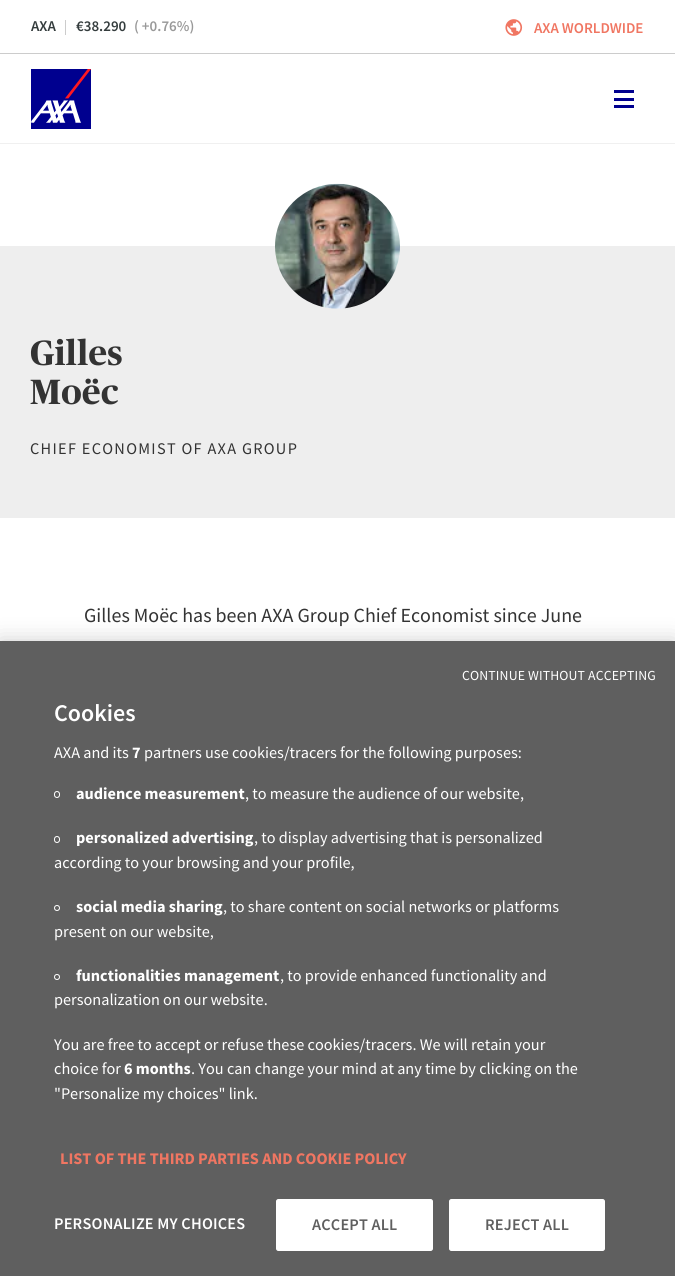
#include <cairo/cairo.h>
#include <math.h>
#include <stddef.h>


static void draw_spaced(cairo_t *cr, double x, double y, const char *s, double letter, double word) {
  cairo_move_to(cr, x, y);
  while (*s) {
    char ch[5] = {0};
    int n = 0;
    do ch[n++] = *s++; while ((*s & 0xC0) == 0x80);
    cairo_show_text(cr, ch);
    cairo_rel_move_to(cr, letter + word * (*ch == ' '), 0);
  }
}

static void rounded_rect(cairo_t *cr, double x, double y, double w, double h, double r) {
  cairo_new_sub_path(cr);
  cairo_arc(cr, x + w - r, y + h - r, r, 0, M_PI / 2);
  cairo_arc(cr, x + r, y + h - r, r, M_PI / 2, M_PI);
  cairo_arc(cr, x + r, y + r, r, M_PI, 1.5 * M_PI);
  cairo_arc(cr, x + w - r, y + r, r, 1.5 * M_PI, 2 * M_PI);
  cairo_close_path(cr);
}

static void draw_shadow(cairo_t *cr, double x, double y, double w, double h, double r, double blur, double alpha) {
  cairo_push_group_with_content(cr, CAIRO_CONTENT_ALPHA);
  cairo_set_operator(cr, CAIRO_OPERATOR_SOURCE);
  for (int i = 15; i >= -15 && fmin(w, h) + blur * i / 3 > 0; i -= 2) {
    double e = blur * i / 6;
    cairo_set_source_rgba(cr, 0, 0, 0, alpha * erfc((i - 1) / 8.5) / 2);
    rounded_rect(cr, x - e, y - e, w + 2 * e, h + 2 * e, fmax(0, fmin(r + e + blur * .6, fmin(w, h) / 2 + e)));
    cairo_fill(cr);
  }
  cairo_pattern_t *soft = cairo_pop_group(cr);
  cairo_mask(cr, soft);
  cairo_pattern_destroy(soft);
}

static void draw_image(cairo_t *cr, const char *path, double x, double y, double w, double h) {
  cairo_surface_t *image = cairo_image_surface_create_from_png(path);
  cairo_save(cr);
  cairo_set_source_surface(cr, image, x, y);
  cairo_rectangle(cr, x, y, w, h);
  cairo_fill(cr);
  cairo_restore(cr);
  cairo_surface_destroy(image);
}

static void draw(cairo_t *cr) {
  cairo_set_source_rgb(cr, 1, 1, 1);
  cairo_paint(cr);
  cairo_set_source_rgb(cr, 204 / 255.0, 204 / 255.0, 204 / 255.0);
  cairo_rectangle(cr, 0, 53, 675, 1);
  cairo_fill(cr);
  cairo_rectangle(cr, 65, 20, 1, 15);
  cairo_fill(cr);
  draw_image(cr, "images/1.png", 505, 19, 18, 17);
  cairo_set_source_rgb(cr, 240 / 255.0, 240 / 255.0, 240 / 255.0);
  cairo_rectangle(cr, 0, 143, 675, 1);
  cairo_fill(cr);
  draw_image(cr, "images/2.png", 31, 69, 60, 60);
  cairo_set_source_rgb(cr, 0, 0, 143 / 255.0);
  cairo_rectangle(cr, 614, 98, 20, 3);
  cairo_fill(cr);
  cairo_rectangle(cr, 614, 90, 20, 3);
  cairo_fill(cr);
  cairo_rectangle(cr, 614, 105, 20, 3);
  cairo_fill(cr);
  cairo_set_source_rgb(cr, 238 / 255.0, 238 / 255.0, 238 / 255.0);
  cairo_rectangle(cr, 0, 246, 675, 272);
  cairo_fill(cr);
  draw_image(cr, "images/3.png", 275, 183, 125, 126);
  cairo_set_source_rgb(cr, 0, 0, 0);
  draw_shadow(cr, 0, 641, 675, 635, 0, 11, 0.2);
  cairo_set_source_rgb(cr, 95 / 255.0, 95 / 255.0, 95 / 255.0);
  cairo_rectangle(cr, 0, 641, 675, 635);
  cairo_fill(cr);
  rounded_rect(cr, 54.5, 791.5, 5, 6, 2.5);
  cairo_set_source_rgb(cr, 1, 1, 1);
  cairo_set_line_width(cr, 1);
  cairo_stroke(cr);
  rounded_rect(cr, 54.5, 836.5, 5, 6, 2.5);
  cairo_stroke(cr);
  cairo_arc(cr, 57, 908, 2.5, 0, 2 * M_PI);
  cairo_stroke(cr);
  cairo_arc(cr, 57, 977, 2.5, 0, 2 * M_PI);
  cairo_stroke(cr);
  rounded_rect(cr, 276.5, 1199.5, 156, 51, 2);
  cairo_fill_preserve(cr);
  cairo_stroke(cr);
  rounded_rect(cr, 449.5, 1199.5, 155, 51, 2);
  cairo_fill_preserve(cr);
  cairo_stroke(cr);
  cairo_select_font_face(cr, "Source Sans Pro SemiBold", CAIRO_FONT_SLANT_NORMAL, CAIRO_FONT_WEIGHT_NORMAL);
  cairo_set_font_size(cr, 15);
  cairo_set_source_rgb(cr, 52 / 255.0, 60 / 255.0, 61 / 255.0);
  cairo_move_to(cr, 31, 31);
  cairo_show_text(cr, "AXA");
  cairo_move_to(cr, 76, 31);
  cairo_show_text(cr, "€38.290");
  cairo_set_source_rgb(cr, 153 / 255.0, 153 / 255.0, 153 / 255.0);
  cairo_move_to(cr, 134, 31);
  cairo_show_text(cr, "( +0.76%)");
  cairo_set_source_rgb(cr, 240 / 255.0, 118 / 255.0, 98 / 255.0);
  cairo_move_to(cr, 534, 33);
  cairo_show_text(cr, "AXA WORLDWIDE");
  cairo_select_font_face(cr, "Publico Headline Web", CAIRO_FONT_SLANT_NORMAL, CAIRO_FONT_WEIGHT_BOLD);
  cairo_set_font_size(cr, 35);
  cairo_set_source_rgb(cr, 51 / 255.0, 51 / 255.0, 51 / 255.0);
  draw_spaced(cr, 30, 365, "Gilles", 0.5, 0);
  draw_spaced(cr, 30, 404, "Moëc", 0.5, 0);
  cairo_select_font_face(cr, "Source Sans Pro", CAIRO_FONT_SLANT_NORMAL, CAIRO_FONT_WEIGHT_NORMAL);
  cairo_set_font_size(cr, 16.25);
  draw_spaced(cr, 30, 454, "CHIEF ECONOMIST OF AXA GROUP", 1.3, 0);
  cairo_set_font_size(cr, 20);
  cairo_move_to(cr, 84, 622);
  cairo_show_text(cr, "Gilles Moëc has been AXA Group Chief Economist since June");
  cairo_set_font_size(cr, 13.75);
  cairo_set_source_rgb(cr, 1, 1, 1);
  draw_spaced(cr, 462, 680, "CONTINUE WITHOUT ACCEPTING", 0.15, 0);
  cairo_select_font_face(cr, "Source Sans Pro SemiBold", CAIRO_FONT_SLANT_NORMAL, CAIRO_FONT_WEIGHT_NORMAL);
  cairo_set_font_size(cr, 24);
  cairo_move_to(cr, 54, 721);
  cairo_show_text(cr, "Cookies");
  cairo_select_font_face(cr, "Source Sans Pro", CAIRO_FONT_SLANT_NORMAL, CAIRO_FONT_WEIGHT_NORMAL);
  cairo_set_font_size(cr, 16.25);
  cairo_move_to(cr, 54, 758);
  cairo_show_text(cr, "AXA and its");
  cairo_select_font_face(cr, "Source Sans Pro", CAIRO_FONT_SLANT_NORMAL, CAIRO_FONT_WEIGHT_BOLD);
  cairo_move_to(cr, 132, 758);
  cairo_show_text(cr, "7");
  cairo_select_font_face(cr, "Source Sans Pro", CAIRO_FONT_SLANT_NORMAL, CAIRO_FONT_WEIGHT_NORMAL);
  cairo_move_to(cr, 144, 758);
  cairo_show_text(cr, "partners use cookies/tracers for the following purposes:");
  cairo_select_font_face(cr, "Source Sans Pro", CAIRO_FONT_SLANT_NORMAL, CAIRO_FONT_WEIGHT_BOLD);
  cairo_move_to(cr, 76, 799);
  cairo_show_text(cr, "audience measurement");
  cairo_select_font_face(cr, "Source Sans Pro", CAIRO_FONT_SLANT_NORMAL, CAIRO_FONT_WEIGHT_NORMAL);
  cairo_move_to(cr, 245, 799);
  cairo_show_text(cr, ", to measure the audience of our website,");
  cairo_select_font_face(cr, "Source Sans Pro", CAIRO_FONT_SLANT_NORMAL, CAIRO_FONT_WEIGHT_BOLD);
  cairo_move_to(cr, 76, 843);
  cairo_show_text(cr, "personalized advertising");
  cairo_select_font_face(cr, "Source Sans Pro", CAIRO_FONT_SLANT_NORMAL, CAIRO_FONT_WEIGHT_NORMAL);
  cairo_move_to(cr, 254, 843);
  cairo_show_text(cr, ", to display advertising that is personalized");
  cairo_move_to(cr, 54, 868);
  cairo_show_text(cr, "according to your browsing and your profile,");
  cairo_select_font_face(cr, "Source Sans Pro", CAIRO_FONT_SLANT_NORMAL, CAIRO_FONT_WEIGHT_BOLD);
  cairo_move_to(cr, 76, 912);
  cairo_show_text(cr, "social media sharing");
  cairo_select_font_face(cr, "Source Sans Pro", CAIRO_FONT_SLANT_NORMAL, CAIRO_FONT_WEIGHT_NORMAL);
  cairo_move_to(cr, 223, 912);
  cairo_show_text(cr, ", to share content on social networks or platforms");
  cairo_move_to(cr, 54, 937);
  cairo_show_text(cr, "present on our website,");
  cairo_select_font_face(cr, "Source Sans Pro", CAIRO_FONT_SLANT_NORMAL, CAIRO_FONT_WEIGHT_BOLD);
  cairo_move_to(cr, 76, 981);
  cairo_show_text(cr, "functionalities management");
  cairo_select_font_face(cr, "Source Sans Pro", CAIRO_FONT_SLANT_NORMAL, CAIRO_FONT_WEIGHT_NORMAL);
  cairo_move_to(cr, 280, 981);
  cairo_show_text(cr, ", to provide enhanced functionality and");
  cairo_move_to(cr, 54, 1005);
  cairo_show_text(cr, "personalization on our website.");
  cairo_move_to(cr, 54, 1050);
  cairo_show_text(cr, "You are free to accept or refuse these cookies/tracers. We will retain your");
  cairo_move_to(cr, 54, 1074);
  cairo_show_text(cr, "choice for");
  cairo_select_font_face(cr, "Source Sans Pro", CAIRO_FONT_SLANT_NORMAL, CAIRO_FONT_WEIGHT_BOLD);
  cairo_move_to(cr, 124, 1074);
  cairo_show_text(cr, "6 months");
  cairo_select_font_face(cr, "Source Sans Pro", CAIRO_FONT_SLANT_NORMAL, CAIRO_FONT_WEIGHT_NORMAL);
  cairo_move_to(cr, 191, 1074);
  cairo_show_text(cr, ". You can change your mind at any time by clicking on the");
  cairo_move_to(cr, 54, 1099);
  cairo_show_text(cr, "\"Personalize my choices\" link.");
  cairo_select_font_face(cr, "Source Sans Pro", CAIRO_FONT_SLANT_NORMAL, CAIRO_FONT_WEIGHT_BOLD);
  cairo_set_source_rgb(cr, 240 / 255.0, 118 / 255.0, 98 / 255.0);
  cairo_move_to(cr, 60, 1164);
  cairo_show_text(cr, "LIST OF THE THIRD PARTIES AND COOKIE POLICY");
  cairo_select_font_face(cr, "Source Sans Pro SemiBold", CAIRO_FONT_SLANT_NORMAL, CAIRO_FONT_WEIGHT_NORMAL);
  cairo_set_source_rgb(cr, 1, 1, 1);
  draw_spaced(cr, 54, 1229, "PERSONALIZE MY CHOICES", 0.2, 0);
  cairo_set_source_rgb(cr, 95 / 255.0, 95 / 255.0, 95 / 255.0);
  draw_spaced(cr, 312, 1230, "ACCEPT ALL", 0.2, 0);
  draw_spaced(cr, 485, 1230, "REJECT ALL", 0.2, 0);
}

int main(void) {
  cairo_surface_t *surface = cairo_image_surface_create(CAIRO_FORMAT_RGB24, 675, 1276);
  cairo_t *cr = cairo_create(surface);
  cairo_font_options_t *options = cairo_font_options_create();
  cairo_font_options_set_hint_metrics(options, CAIRO_HINT_METRICS_OFF);
  cairo_font_options_set_hint_style(options, CAIRO_HINT_STYLE_NONE);
  cairo_set_font_options(cr, options);
  cairo_set_miter_limit(cr, 4);
  draw(cr);
  cairo_surface_write_to_png(surface, "out.png");
  cairo_font_options_destroy(options);
  cairo_destroy(cr);
  cairo_surface_destroy(surface);
  return 0;
}
